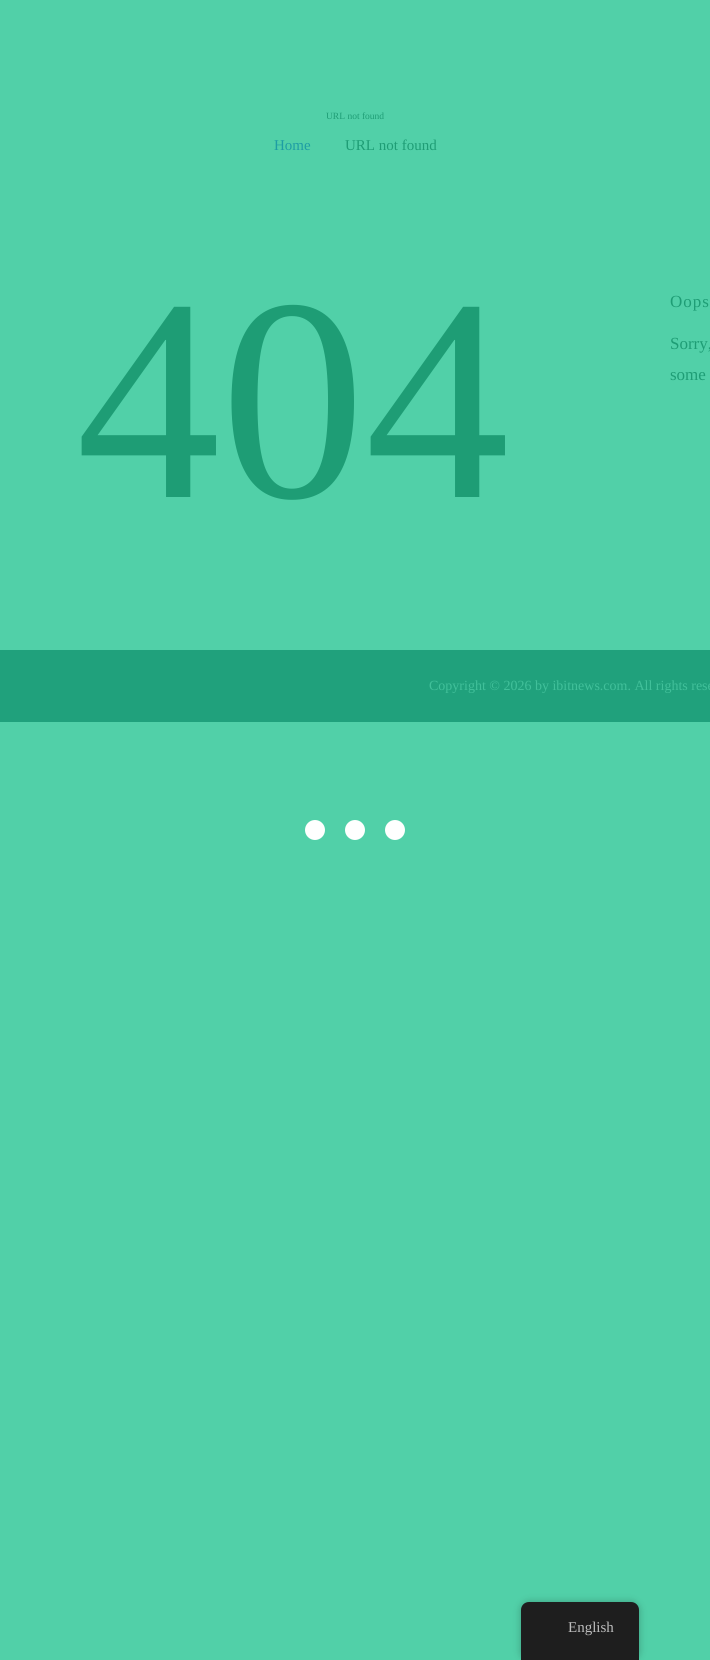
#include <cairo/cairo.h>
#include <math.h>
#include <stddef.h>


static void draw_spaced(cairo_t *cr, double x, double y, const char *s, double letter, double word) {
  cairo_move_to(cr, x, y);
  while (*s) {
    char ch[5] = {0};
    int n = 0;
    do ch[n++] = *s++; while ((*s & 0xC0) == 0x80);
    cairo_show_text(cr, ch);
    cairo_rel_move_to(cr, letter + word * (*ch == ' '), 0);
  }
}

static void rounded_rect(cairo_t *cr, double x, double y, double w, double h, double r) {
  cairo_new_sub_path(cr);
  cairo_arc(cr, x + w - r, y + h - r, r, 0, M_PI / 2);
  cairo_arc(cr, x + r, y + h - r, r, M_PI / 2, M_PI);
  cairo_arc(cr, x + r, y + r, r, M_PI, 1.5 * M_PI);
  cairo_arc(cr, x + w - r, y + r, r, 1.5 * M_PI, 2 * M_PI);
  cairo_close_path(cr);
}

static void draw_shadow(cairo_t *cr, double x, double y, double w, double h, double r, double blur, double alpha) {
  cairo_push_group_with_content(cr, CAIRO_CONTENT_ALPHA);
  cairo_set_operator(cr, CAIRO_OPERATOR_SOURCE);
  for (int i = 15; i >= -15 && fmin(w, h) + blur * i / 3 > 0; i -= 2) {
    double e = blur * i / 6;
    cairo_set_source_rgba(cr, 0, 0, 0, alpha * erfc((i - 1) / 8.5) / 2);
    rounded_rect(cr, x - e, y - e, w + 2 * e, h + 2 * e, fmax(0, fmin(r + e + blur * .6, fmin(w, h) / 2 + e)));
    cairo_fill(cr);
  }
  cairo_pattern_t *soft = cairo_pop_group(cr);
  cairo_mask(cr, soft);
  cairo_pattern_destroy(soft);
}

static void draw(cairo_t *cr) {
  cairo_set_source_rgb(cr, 81 / 255.0, 208 / 255.0, 168 / 255.0);
  cairo_paint(cr);
  cairo_set_source_rgb(cr, 32 / 255.0, 161 / 255.0, 124 / 255.0);
  cairo_rectangle(cr, 0, 650, 710, 72);
  cairo_fill(cr);
  cairo_set_source_rgb(cr, 1, 1, 1);
  cairo_arc(cr, 315, 830, 10, 0, 2 * M_PI);
  cairo_fill(cr);
  cairo_arc(cr, 355, 830, 10, 0, 2 * M_PI);
  cairo_fill(cr);
  cairo_arc(cr, 395, 830, 10, 0, 2 * M_PI);
  cairo_fill(cr);
  cairo_set_source_rgb(cr, 0, 0, 0);
  draw_shadow(cr, 521, 1602, 118, 58, 8, 4, 0.25);
  cairo_set_source_rgb(cr, 30 / 255.0, 30 / 255.0, 30 / 255.0);
  cairo_new_path(cr);
  cairo_move_to(cr, 529, 1602);
  cairo_line_to(cr, 631, 1602);
  cairo_curve_to(cr, 635.5, 1602, 639, 1605.5, 639, 1610);
  cairo_line_to(cr, 639, 1660);
  cairo_line_to(cr, 521, 1660);
  cairo_line_to(cr, 521, 1610);
  cairo_curve_to(cr, 521, 1605.5, 524.5, 1602, 529, 1602);
  cairo_close_path(cr);
  cairo_fill(cr);
  cairo_select_font_face(cr, "Liberation Serif", CAIRO_FONT_SLANT_NORMAL, CAIRO_FONT_WEIGHT_NORMAL);
  cairo_set_font_size(cr, 9.5);
  cairo_set_source_rgb(cr, 30 / 255.0, 157 / 255.0, 117 / 255.0);
  cairo_move_to(cr, 326, 119);
  cairo_show_text(cr, "URL not found");
  cairo_set_font_size(cr, 15);
  cairo_set_source_rgb(cr, 30 / 255.0, 157 / 255.0, 164 / 255.0);
  cairo_move_to(cr, 274, 150);
  cairo_show_text(cr, "Home");
  cairo_set_source_rgb(cr, 30 / 255.0, 157 / 255.0, 117 / 255.0);
  cairo_move_to(cr, 345, 150);
  cairo_show_text(cr, "URL not found");
  cairo_set_font_size(cr, 289);
  cairo_move_to(cr, 76, 497);
  cairo_show_text(cr, "404");
  cairo_set_font_size(cr, 17);
  draw_spaced(cr, 670, 307, "Oops", 1, 0);
  cairo_move_to(cr, 670, 349);
  cairo_show_text(cr, "Sorry,");
  cairo_move_to(cr, 670, 380);
  cairo_show_text(cr, "some");
  cairo_set_font_size(cr, 14);
  cairo_set_source_rgb(cr, 65 / 255.0, 192 / 255.0, 154 / 255.0);
  cairo_move_to(cr, 429, 690);
  cairo_show_text(cr, "Copyright © 2026 by ibitnews.com. All rights rese");
  cairo_set_font_size(cr, 15);
  cairo_set_source_rgb(cr, 189 / 255.0, 189 / 255.0, 189 / 255.0);
  cairo_move_to(cr, 568, 1632);
  cairo_show_text(cr, "English");
}

int main(void) {
  cairo_surface_t *surface = cairo_image_surface_create(CAIRO_FORMAT_RGB24, 710, 1660);
  cairo_t *cr = cairo_create(surface);
  cairo_font_options_t *options = cairo_font_options_create();
  cairo_font_options_set_hint_metrics(options, CAIRO_HINT_METRICS_OFF);
  cairo_font_options_set_hint_style(options, CAIRO_HINT_STYLE_NONE);
  cairo_set_font_options(cr, options);
  cairo_set_miter_limit(cr, 4);
  draw(cr);
  cairo_surface_write_to_png(surface, "out.png");
  cairo_font_options_destroy(options);
  cairo_destroy(cr);
  cairo_surface_destroy(surface);
  return 0;
}
